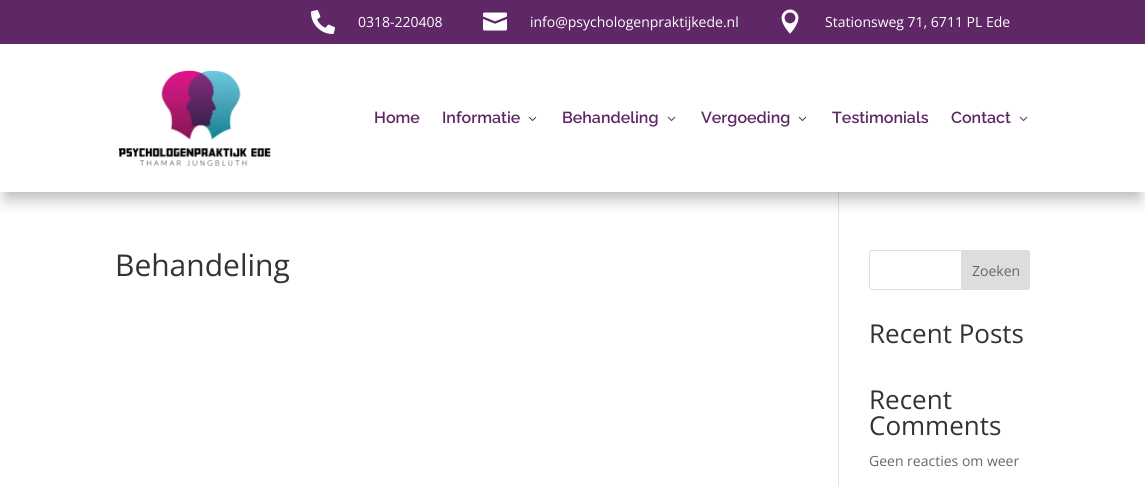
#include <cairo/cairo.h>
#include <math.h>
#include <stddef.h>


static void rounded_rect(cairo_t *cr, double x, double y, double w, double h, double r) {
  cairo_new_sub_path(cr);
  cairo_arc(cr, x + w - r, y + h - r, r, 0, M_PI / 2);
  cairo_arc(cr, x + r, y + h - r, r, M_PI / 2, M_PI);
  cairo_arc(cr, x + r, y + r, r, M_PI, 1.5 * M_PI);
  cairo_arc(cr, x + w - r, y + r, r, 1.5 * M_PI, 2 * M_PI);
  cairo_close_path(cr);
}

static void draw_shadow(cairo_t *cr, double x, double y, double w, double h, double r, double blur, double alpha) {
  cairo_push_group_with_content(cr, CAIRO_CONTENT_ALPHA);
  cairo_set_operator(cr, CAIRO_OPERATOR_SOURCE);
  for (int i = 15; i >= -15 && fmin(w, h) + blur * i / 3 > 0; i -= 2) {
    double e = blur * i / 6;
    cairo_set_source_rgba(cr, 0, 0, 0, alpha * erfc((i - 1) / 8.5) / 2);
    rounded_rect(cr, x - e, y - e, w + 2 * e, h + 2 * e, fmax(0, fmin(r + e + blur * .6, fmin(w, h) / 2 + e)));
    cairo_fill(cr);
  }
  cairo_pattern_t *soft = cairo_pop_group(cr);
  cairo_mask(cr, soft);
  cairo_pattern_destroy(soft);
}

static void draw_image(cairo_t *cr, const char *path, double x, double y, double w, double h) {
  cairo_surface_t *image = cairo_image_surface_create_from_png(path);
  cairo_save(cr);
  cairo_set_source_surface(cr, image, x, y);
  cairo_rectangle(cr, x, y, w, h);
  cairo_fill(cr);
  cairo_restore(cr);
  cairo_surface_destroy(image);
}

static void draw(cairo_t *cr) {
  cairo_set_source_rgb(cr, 1, 1, 1);
  cairo_paint(cr);
  cairo_set_source_rgb(cr, 95 / 255.0, 39 / 255.0, 102 / 255.0);
  cairo_rectangle(cr, 0, 0, 1145, 44);
  cairo_fill(cr);
  draw_image(cr, "images/1.png", 311, 10, 24, 24);
  draw_image(cr, "images/2.png", 483, 12, 24, 19);
  draw_image(cr, "images/3.png", 781, 9, 18, 25);
  cairo_set_source_rgb(cr, 226 / 255.0, 226 / 255.0, 226 / 255.0);
  cairo_rectangle(cr, 838, 192, 1, 294);
  cairo_fill(cr);
  cairo_save(cr);
  cairo_rectangle(cr, 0, 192, 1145, 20);
  cairo_clip(cr);
  cairo_set_source_rgb(cr, 0, 0, 0);
  draw_shadow(cr, 6, 62, 1133, 136, 0, 9, 0.3);
  cairo_restore(cr);
  draw_image(cr, "images/4.png", 118, 70, 153, 96);
  draw_image(cr, "images/5.png", 528, 116, 9, 5);
  draw_image(cr, "images/5.png", 667, 116, 9, 5);
  draw_image(cr, "images/5.png", 798, 116, 9, 5);
  draw_image(cr, "images/5.png", 1019, 116, 9, 5);
  rounded_rect(cr, 869.5, 250.5, 160, 39, 2.5);
  cairo_set_source_rgb(cr, 221 / 255.0, 221 / 255.0, 221 / 255.0);
  cairo_set_line_width(cr, 1);
  cairo_stroke(cr);
  cairo_new_path(cr);
  cairo_move_to(cr, 961.5, 250.5);
  cairo_line_to(cr, 1027, 250.5);
  cairo_curve_to(cr, 1028.5, 250.5, 1029.5, 251.5, 1029.5, 253);
  cairo_line_to(cr, 1029.5, 287);
  cairo_curve_to(cr, 1029.5, 288.5, 1028.5, 289.5, 1027, 289.5);
  cairo_line_to(cr, 961.5, 289.5);
  cairo_close_path(cr);
  cairo_fill_preserve(cr);
  cairo_stroke(cr);
  cairo_select_font_face(cr, "Open Sans", CAIRO_FONT_SLANT_NORMAL, CAIRO_FONT_WEIGHT_NORMAL);
  cairo_set_font_size(cr, 14);
  cairo_set_source_rgb(cr, 1, 1, 1);
  cairo_move_to(cr, 358, 27);
  cairo_show_text(cr, "0318-220408");
  cairo_move_to(cr, 530, 27);
  cairo_show_text(cr, "info@psychologenpraktijkede.nl");
  cairo_move_to(cr, 825, 27);
  cairo_show_text(cr, "Stationsweg 71, 6711 PL Ede");
  cairo_select_font_face(cr, "Raleway SemiBold", CAIRO_FONT_SLANT_NORMAL, CAIRO_FONT_WEIGHT_NORMAL);
  cairo_set_font_size(cr, 16);
  cairo_set_source_rgb(cr, 95 / 255.0, 39 / 255.0, 102 / 255.0);
  cairo_move_to(cr, 374, 123);
  cairo_show_text(cr, "Home");
  cairo_move_to(cr, 442, 123);
  cairo_show_text(cr, "Informatie");
  cairo_move_to(cr, 562, 123);
  cairo_show_text(cr, "Behandeling");
  cairo_move_to(cr, 701, 123);
  cairo_show_text(cr, "Vergoeding");
  cairo_move_to(cr, 832, 123);
  cairo_show_text(cr, "Testimonials");
  cairo_move_to(cr, 951, 123);
  cairo_show_text(cr, "Contact");
  cairo_select_font_face(cr, "Open Sans", CAIRO_FONT_SLANT_NORMAL, CAIRO_FONT_WEIGHT_NORMAL);
  cairo_set_font_size(cr, 30);
  cairo_set_source_rgb(cr, 51 / 255.0, 51 / 255.0, 51 / 255.0);
  cairo_move_to(cr, 115, 276);
  cairo_show_text(cr, "Behandeling");
  cairo_set_font_size(cr, 14);
  cairo_set_source_rgb(cr, 102 / 255.0, 102 / 255.0, 102 / 255.0);
  cairo_move_to(cr, 972, 276);
  cairo_show_text(cr, "Zoeken");
  cairo_set_font_size(cr, 26);
  cairo_set_source_rgb(cr, 51 / 255.0, 51 / 255.0, 51 / 255.0);
  cairo_move_to(cr, 869, 343);
  cairo_show_text(cr, "Recent Posts");
  cairo_move_to(cr, 869, 409);
  cairo_show_text(cr, "Recent");
  cairo_move_to(cr, 869, 435);
  cairo_show_text(cr, "Comments");
  cairo_set_font_size(cr, 14);
  cairo_set_source_rgb(cr, 102 / 255.0, 102 / 255.0, 102 / 255.0);
  cairo_move_to(cr, 869, 466);
  cairo_show_text(cr, "Geen reacties om weer");
}

int main(void) {
  cairo_surface_t *surface = cairo_image_surface_create(CAIRO_FORMAT_RGB24, 1145, 486);
  cairo_t *cr = cairo_create(surface);
  cairo_font_options_t *options = cairo_font_options_create();
  cairo_font_options_set_hint_metrics(options, CAIRO_HINT_METRICS_OFF);
  cairo_font_options_set_hint_style(options, CAIRO_HINT_STYLE_NONE);
  cairo_set_font_options(cr, options);
  cairo_set_miter_limit(cr, 4);
  draw(cr);
  cairo_surface_write_to_png(surface, "out.png");
  cairo_font_options_destroy(options);
  cairo_destroy(cr);
  cairo_surface_destroy(surface);
  return 0;
}
